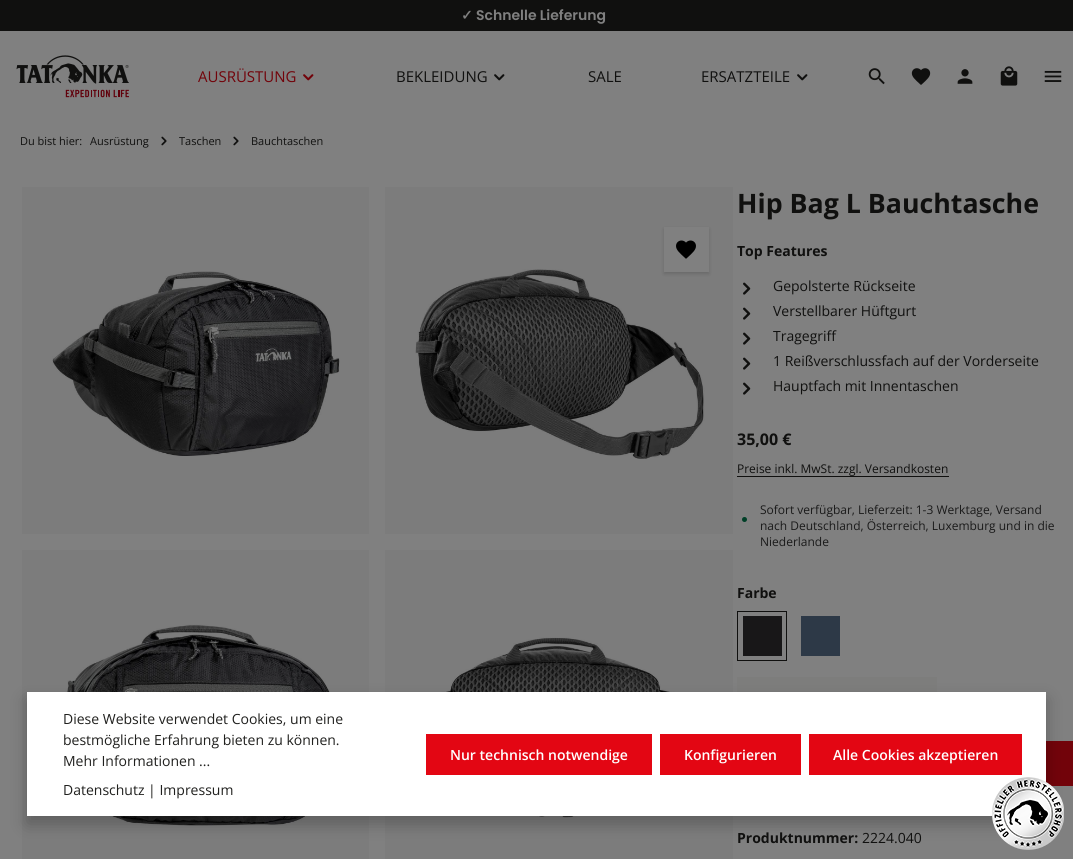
#include <cairo/cairo.h>
#include <math.h>
#include <stddef.h>


static void rounded_rect(cairo_t *cr, double x, double y, double w, double h, double r) {
  cairo_new_sub_path(cr);
  cairo_arc(cr, x + w - r, y + h - r, r, 0, M_PI / 2);
  cairo_arc(cr, x + r, y + h - r, r, M_PI / 2, M_PI);
  cairo_arc(cr, x + r, y + r, r, M_PI, 1.5 * M_PI);
  cairo_arc(cr, x + w - r, y + r, r, 1.5 * M_PI, 2 * M_PI);
  cairo_close_path(cr);
}

static void draw_shadow(cairo_t *cr, double x, double y, double w, double h, double r, double blur, double alpha) {
  cairo_push_group_with_content(cr, CAIRO_CONTENT_ALPHA);
  cairo_set_operator(cr, CAIRO_OPERATOR_SOURCE);
  for (int i = 15; i >= -15 && fmin(w, h) + blur * i / 3 > 0; i -= 2) {
    double e = blur * i / 6;
    cairo_set_source_rgba(cr, 0, 0, 0, alpha * erfc((i - 1) / 8.5) / 2);
    rounded_rect(cr, x - e, y - e, w + 2 * e, h + 2 * e, fmax(0, fmin(r + e + blur * .6, fmin(w, h) / 2 + e)));
    cairo_fill(cr);
  }
  cairo_pattern_t *soft = cairo_pop_group(cr);
  cairo_mask(cr, soft);
  cairo_pattern_destroy(soft);
}

static void draw_image(cairo_t *cr, const char *path, double x, double y, double w, double h) {
  cairo_surface_t *image = cairo_image_surface_create_from_png(path);
  cairo_save(cr);
  cairo_set_source_surface(cr, image, x, y);
  cairo_rectangle(cr, x, y, w, h);
  cairo_fill(cr);
  cairo_restore(cr);
  cairo_surface_destroy(image);
}

static void draw(cairo_t *cr) {
  cairo_set_source_rgb(cr, 128 / 255.0, 128 / 255.0, 128 / 255.0);
  cairo_paint(cr);
  cairo_set_source_rgb(cr, 124 / 255.0, 124 / 255.0, 124 / 255.0);
  cairo_rectangle(cr, 385, 550, 348, 309);
  cairo_fill(cr);
  cairo_rectangle(cr, 22, 550, 347, 309);
  cairo_fill(cr);
  cairo_rectangle(cr, 385, 187, 348, 347);
  cairo_fill(cr);
  cairo_rectangle(cr, 22, 187, 347, 347);
  cairo_fill(cr);
  cairo_set_source_rgb(cr, 16 / 255.0, 16 / 255.0, 15 / 255.0);
  cairo_rectangle(cr, 0, 0, 1073, 31);
  cairo_fill(cr);
  draw_image(cr, "images/1.png", 16, 55, 113, 43);
  draw_image(cr, "images/2.png", 303, 74, 11, 7);
  draw_image(cr, "images/3.png", 494, 74, 11, 7);
  draw_image(cr, "images/3.png", 797, 74, 11, 7);
  draw_image(cr, "images/4.png", 868, 68, 17, 17);
  draw_image(cr, "images/5.png", 911, 68, 20, 17);
  draw_image(cr, "images/6.png", 957, 69, 16, 15);
  draw_image(cr, "images/7.png", 1000, 66, 18, 20);
  draw_image(cr, "images/8.png", 1044, 70, 18, 12);
  draw_image(cr, "images/9.png", 161, 136, 6, 10);
  draw_image(cr, "images/9.png", 233, 136, 6, 10);
  draw_image(cr, "images/12.png", 415, 269, 290, 190);
  cairo_set_source_rgb(cr, 128 / 255.0, 128 / 255.0, 128 / 255.0);
  cairo_rectangle(cr, 664, 227, 45, 45);
  cairo_fill(cr);
  cairo_save(cr);
  cairo_set_fill_rule(cr, CAIRO_FILL_RULE_EVEN_ODD);
  cairo_new_path(cr);
  cairo_move_to(cr, 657, 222);
  cairo_line_to(cr, 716, 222);
  cairo_line_to(cr, 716, 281);
  cairo_line_to(cr, 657, 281);
  cairo_close_path(cr);
  cairo_move_to(cr, 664, 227);
  cairo_line_to(cr, 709, 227);
  cairo_line_to(cr, 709, 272);
  cairo_line_to(cr, 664, 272);
  cairo_close_path(cr);
  cairo_clip(cr);
  cairo_set_source_rgb(cr, 0, 0, 0);
  draw_shadow(cr, 664, 229, 45, 45, 0, 2, 0.15);
  cairo_restore(cr);
  draw_image(cr, "images/10.png", 676, 240, 20, 19);
  draw_image(cr, "images/11.png", 52, 271, 288, 185);
  draw_image(cr, "images/13.png", 51, 624, 289, 202);
  draw_image(cr, "images/14.png", 415, 637, 288, 181);
  draw_image(cr, "images/15.png", 743, 282, 8, 13);
  draw_image(cr, "images/15.png", 743, 307, 8, 13);
  draw_image(cr, "images/15.png", 743, 332, 8, 13);
  draw_image(cr, "images/15.png", 743, 357, 8, 13);
  draw_image(cr, "images/15.png", 743, 382, 8, 13);
  cairo_set_source_rgb(cr, 16 / 255.0, 16 / 255.0, 15 / 255.0);
  cairo_rectangle(cr, 737, 476, 212, 1);
  cairo_fill(cr);
  cairo_set_source_rgb(cr, 0, 63 / 255.0, 39 / 255.0);
  cairo_arc(cr, 744.5, 519.5, 2.5, 0, 2 * M_PI);
  cairo_fill(cr);
  cairo_rectangle(cr, 737.5, 611.5, 49, 49);
  cairo_set_source_rgb(cr, 16 / 255.0, 16 / 255.0, 15 / 255.0);
  cairo_set_line_width(cr, 1);
  cairo_stroke(cr);
  cairo_set_source_rgb(cr, 24 / 255.0, 23 / 255.0, 24 / 255.0);
  cairo_rectangle(cr, 743, 616, 39, 40);
  cairo_fill(cr);
  cairo_set_source_rgb(cr, 45 / 255.0, 57 / 255.0, 71 / 255.0);
  cairo_rectangle(cr, 801, 616, 39, 40);
  cairo_fill(cr);
  cairo_set_source_rgb(cr, 125 / 255.0, 125 / 255.0, 124 / 255.0);
  cairo_rectangle(cr, 737, 677, 200, 15);
  cairo_fill(cr);
  cairo_set_source_rgb(cr, 114 / 255.0, 3 / 255.0, 10 / 255.0);
  cairo_rectangle(cr, 1046, 741, 27, 45);
  cairo_fill(cr);
  cairo_set_source_rgb(cr, 0, 0, 0);
  draw_shadow(cr, 27, 700, 1019, 124, 0, 8, 0.25);
  cairo_set_source_rgb(cr, 1, 1, 1);
  cairo_rectangle(cr, 27, 692, 1019, 124);
  cairo_fill(cr);
  cairo_set_source_rgb(cr, 227 / 255.0, 6 / 255.0, 19 / 255.0);
  cairo_rectangle(cr, 426, 734, 226, 41);
  cairo_fill(cr);
  cairo_rectangle(cr, 660, 734, 141, 41);
  cairo_fill(cr);
  cairo_rectangle(cr, 809, 734, 213, 41);
  cairo_fill(cr);
  draw_image(cr, "images/16.png", 992, 777, 72, 73);
  cairo_select_font_face(cr, "DejaVu Sans", CAIRO_FONT_SLANT_NORMAL, CAIRO_FONT_WEIGHT_BOLD);
  cairo_set_font_size(cr, 14);
  cairo_set_source_rgb(cr, 128 / 255.0, 128 / 255.0, 128 / 255.0);
  cairo_move_to(cr, 461, 20);
  cairo_show_text(cr, "✓");
  cairo_select_font_face(cr, "Poppins SemiBold", CAIRO_FONT_SLANT_NORMAL, CAIRO_FONT_WEIGHT_NORMAL);
  cairo_move_to(cr, 476, 20);
  cairo_show_text(cr, "Schnelle Lieferung");
  cairo_select_font_face(cr, "Open Sans", CAIRO_FONT_SLANT_NORMAL, CAIRO_FONT_WEIGHT_NORMAL);
  cairo_set_font_size(cr, 15);
  cairo_set_source_rgb(cr, 114 / 255.0, 3 / 255.0, 10 / 255.0);
  cairo_move_to(cr, 198, 82);
  cairo_show_text(cr, "AUSRÜSTUNG");
  cairo_set_source_rgb(cr, 16 / 255.0, 16 / 255.0, 15 / 255.0);
  cairo_move_to(cr, 396, 82);
  cairo_show_text(cr, "BEKLEIDUNG");
  cairo_move_to(cr, 588, 82);
  cairo_show_text(cr, "SALE");
  cairo_move_to(cr, 701, 82);
  cairo_show_text(cr, "ERSATZTEILE");
  cairo_set_font_size(cr, 11);
  cairo_move_to(cr, 20, 145);
  cairo_show_text(cr, "Du bist hier:");
  cairo_move_to(cr, 90, 145);
  cairo_show_text(cr, "Ausrüstung");
  cairo_move_to(cr, 179, 145);
  cairo_show_text(cr, "Taschen");
  cairo_move_to(cr, 251, 145);
  cairo_show_text(cr, "Bauchtaschen");
  cairo_select_font_face(cr, "Open Sans", CAIRO_FONT_SLANT_NORMAL, CAIRO_FONT_WEIGHT_BOLD);
  cairo_set_font_size(cr, 26.75);
  cairo_move_to(cr, 737, 213);
  cairo_show_text(cr, "Hip Bag L Bauchtasche");
  cairo_set_font_size(cr, 14);
  cairo_move_to(cr, 737, 256);
  cairo_show_text(cr, "Top Features");
  cairo_select_font_face(cr, "Open Sans", CAIRO_FONT_SLANT_NORMAL, CAIRO_FONT_WEIGHT_NORMAL);
  cairo_move_to(cr, 773, 291);
  cairo_show_text(cr, "Gepolsterte Rückseite");
  cairo_move_to(cr, 773, 316);
  cairo_show_text(cr, "Verstellbarer Hüftgurt");
  cairo_move_to(cr, 773, 341);
  cairo_show_text(cr, "Tragegriff");
  cairo_move_to(cr, 773, 366);
  cairo_show_text(cr, "1 Reißverschlussfach auf der Vorderseite");
  cairo_move_to(cr, 773, 391);
  cairo_show_text(cr, "Hauptfach mit Innentaschen");
  cairo_select_font_face(cr, "Open Sans", CAIRO_FONT_SLANT_NORMAL, CAIRO_FONT_WEIGHT_BOLD);
  cairo_set_font_size(cr, 16);
  cairo_move_to(cr, 737, 445);
  cairo_show_text(cr, "35,00 €");
  cairo_select_font_face(cr, "Open Sans", CAIRO_FONT_SLANT_NORMAL, CAIRO_FONT_WEIGHT_NORMAL);
  cairo_set_font_size(cr, 12);
  cairo_move_to(cr, 737, 473);
  cairo_show_text(cr, "Preise inkl. MwSt. zzgl. Versandkosten");
  cairo_set_source_rgb(cr, 26 / 255.0, 26 / 255.0, 26 / 255.0);
  cairo_move_to(cr, 760, 514);
  cairo_show_text(cr, "Sofort verfügbar, Lieferzeit: 1-3 Werktage, Versand");
  cairo_move_to(cr, 760, 530);
  cairo_show_text(cr, "nach Deutschland, Österreich, Luxemburg und in die");
  cairo_move_to(cr, 760, 546);
  cairo_show_text(cr, "Niederlande");
  cairo_select_font_face(cr, "Open Sans", CAIRO_FONT_SLANT_NORMAL, CAIRO_FONT_WEIGHT_BOLD);
  cairo_set_font_size(cr, 14);
  cairo_set_source_rgb(cr, 16 / 255.0, 16 / 255.0, 15 / 255.0);
  cairo_move_to(cr, 737, 598);
  cairo_show_text(cr, "Farbe");
  cairo_move_to(cr, 737, 843);
  cairo_show_text(cr, "Produktnummer:");
  cairo_select_font_face(cr, "Open Sans", CAIRO_FONT_SLANT_NORMAL, CAIRO_FONT_WEIGHT_NORMAL);
  cairo_move_to(cr, 862, 843);
  cairo_show_text(cr, "2224.040");
  cairo_set_source_rgb(cr, 32 / 255.0, 32 / 255.0, 30 / 255.0);
  cairo_move_to(cr, 63, 724);
  cairo_show_text(cr, "Diese Website verwendet Cookies, um eine");
  cairo_move_to(cr, 63, 745);
  cairo_show_text(cr, "bestmögliche Erfahrung bieten zu können.");
  cairo_move_to(cr, 63, 766);
  cairo_show_text(cr, "Mehr Informationen ...");
  cairo_move_to(cr, 63, 795);
  cairo_show_text(cr, "Datenschutz | Impressum");
  cairo_select_font_face(cr, "Open Sans SemiBold", CAIRO_FONT_SLANT_NORMAL, CAIRO_FONT_WEIGHT_NORMAL);
  cairo_set_source_rgb(cr, 1, 1, 1);
  cairo_move_to(cr, 450, 760);
  cairo_show_text(cr, "Nur technisch notwendige");
  cairo_move_to(cr, 684, 760);
  cairo_show_text(cr, "Konfigurieren");
  cairo_move_to(cr, 833, 760);
  cairo_show_text(cr, "Alle Cookies akzeptieren");
}

int main(void) {
  cairo_surface_t *surface = cairo_image_surface_create(CAIRO_FORMAT_RGB24, 1073, 859);
  cairo_t *cr = cairo_create(surface);
  cairo_font_options_t *options = cairo_font_options_create();
  cairo_font_options_set_hint_metrics(options, CAIRO_HINT_METRICS_OFF);
  cairo_font_options_set_hint_style(options, CAIRO_HINT_STYLE_NONE);
  cairo_set_font_options(cr, options);
  cairo_set_miter_limit(cr, 4);
  draw(cr);
  cairo_surface_write_to_png(surface, "out.png");
  cairo_font_options_destroy(options);
  cairo_destroy(cr);
  cairo_surface_destroy(surface);
  return 0;
}
